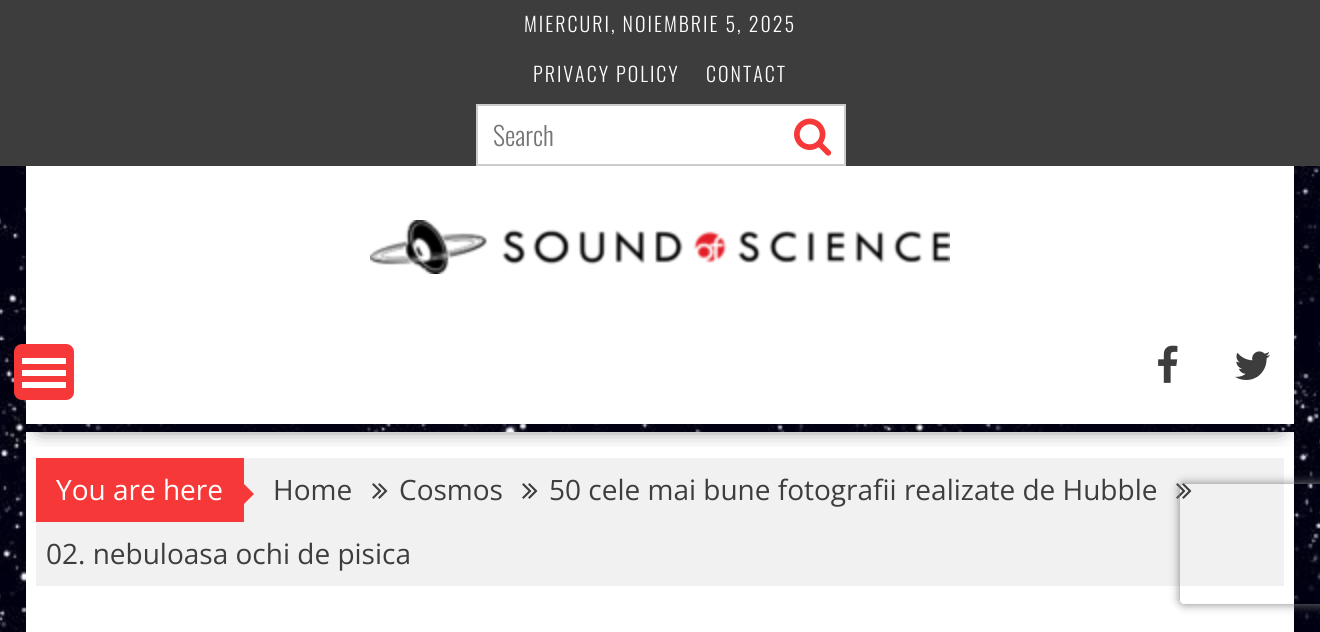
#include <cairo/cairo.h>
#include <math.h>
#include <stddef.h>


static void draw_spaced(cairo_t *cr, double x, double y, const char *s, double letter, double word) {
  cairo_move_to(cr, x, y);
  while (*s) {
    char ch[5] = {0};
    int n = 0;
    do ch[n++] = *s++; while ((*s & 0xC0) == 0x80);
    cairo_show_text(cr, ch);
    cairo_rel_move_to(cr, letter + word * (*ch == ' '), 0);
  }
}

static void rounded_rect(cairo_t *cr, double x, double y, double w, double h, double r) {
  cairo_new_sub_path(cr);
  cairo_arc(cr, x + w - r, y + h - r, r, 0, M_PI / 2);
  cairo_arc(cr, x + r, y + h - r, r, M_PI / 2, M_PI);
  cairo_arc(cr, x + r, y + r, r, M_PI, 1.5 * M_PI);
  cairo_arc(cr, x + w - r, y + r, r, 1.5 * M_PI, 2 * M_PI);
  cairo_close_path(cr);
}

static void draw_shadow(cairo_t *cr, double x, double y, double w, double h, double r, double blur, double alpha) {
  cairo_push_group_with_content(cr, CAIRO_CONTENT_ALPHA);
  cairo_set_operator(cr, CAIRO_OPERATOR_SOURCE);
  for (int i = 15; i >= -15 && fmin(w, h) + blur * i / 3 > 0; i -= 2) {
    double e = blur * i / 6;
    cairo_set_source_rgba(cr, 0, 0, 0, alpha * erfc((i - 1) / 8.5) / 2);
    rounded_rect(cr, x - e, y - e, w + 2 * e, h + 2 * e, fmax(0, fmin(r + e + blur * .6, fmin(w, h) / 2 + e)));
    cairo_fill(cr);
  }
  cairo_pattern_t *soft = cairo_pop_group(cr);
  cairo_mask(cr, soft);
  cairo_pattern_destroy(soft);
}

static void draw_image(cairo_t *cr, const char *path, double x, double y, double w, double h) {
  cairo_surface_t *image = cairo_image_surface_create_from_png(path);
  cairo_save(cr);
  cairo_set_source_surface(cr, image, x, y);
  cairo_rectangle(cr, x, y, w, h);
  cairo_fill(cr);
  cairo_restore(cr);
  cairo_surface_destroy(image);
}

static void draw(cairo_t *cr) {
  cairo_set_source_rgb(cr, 1, 1, 1);
  cairo_paint(cr);
  draw_image(cr, "images/1.png", 0, 166, 1320, 466);
  cairo_set_source_rgb(cr, 61 / 255.0, 61 / 255.0, 61 / 255.0);
  cairo_rectangle(cr, 0, 0, 1320, 166);
  cairo_fill(cr);
  cairo_set_source_rgb(cr, 1, 1, 1);
  cairo_rectangle(cr, 477, 105, 368, 60);
  cairo_fill_preserve(cr);
  cairo_set_source_rgb(cr, 204 / 255.0, 204 / 255.0, 204 / 255.0);
  cairo_stroke(cr);
  draw_image(cr, "images/2.png", 794, 118, 38, 38);
  cairo_set_source_rgb(cr, 1, 1, 1);
  cairo_rectangle(cr, 26, 166, 1268, 162);
  cairo_fill(cr);
  draw_image(cr, "images/3.png", 370, 220, 580, 54);
  cairo_rectangle(cr, 26, 432, 1268, 200);
  cairo_fill(cr);
  cairo_set_source_rgb(cr, 241 / 255.0, 241 / 255.0, 241 / 255.0);
  cairo_rectangle(cr, 36, 458, 1248, 128);
  cairo_fill(cr);
  cairo_save(cr);
  cairo_rectangle(cr, 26, 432, 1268, 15);
  cairo_clip(cr);
  cairo_set_source_rgb(cr, 0, 0, 0);
  draw_shadow(cr, 40, 402, 1240, 24, 0, 11, 0.75);
  cairo_restore(cr);
  cairo_set_source_rgb(cr, 1, 1, 1);
  cairo_rectangle(cr, 26, 328, 1268, 96);
  cairo_fill(cr);
  draw_image(cr, "images/4.png", 1158, 345, 20, 38);
  draw_image(cr, "images/5.png", 1235, 351, 35, 29);
  cairo_set_source_rgb(cr, 247 / 255.0, 56 / 255.0, 56 / 255.0);
  rounded_rect(cr, 15, 345, 58, 54, 7);
  cairo_fill_preserve(cr);
  cairo_stroke(cr);
  cairo_set_source_rgb(cr, 1, 1, 1);
  cairo_rectangle(cr, 22, 382, 44, 6);
  cairo_fill(cr);
  cairo_rectangle(cr, 22, 370, 44, 6);
  cairo_fill(cr);
  cairo_rectangle(cr, 22, 358, 44, 6);
  cairo_fill(cr);
  draw_image(cr, "images/6.png", 372, 483, 16, 16);
  draw_image(cr, "images/6.png", 522, 483, 16, 16);
  draw_image(cr, "images/6.png", 1176, 483, 16, 16);
  cairo_set_source_rgb(cr, 247 / 255.0, 56 / 255.0, 56 / 255.0);
  cairo_rectangle(cr, 36, 458, 208, 64);
  cairo_fill(cr);
  cairo_new_path(cr);
  cairo_move_to(cr, 244, 504);
  cairo_line_to(cr, 244, 484);
  cairo_line_to(cr, 254, 494);
  cairo_close_path(cr);
  cairo_fill(cr);
  cairo_save(cr);
  cairo_set_fill_rule(cr, CAIRO_FILL_RULE_EVEN_ODD);
  cairo_new_path(cr);
  cairo_move_to(cr, 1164, 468);
  cairo_line_to(cr, 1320, 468);
  cairo_line_to(cr, 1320, 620);
  cairo_line_to(cr, 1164, 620);
  cairo_close_path(cr);
  cairo_move_to(cr, 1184, 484);
  cairo_line_to(cr, 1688, 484);
  cairo_curve_to(cr, 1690, 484, 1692, 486, 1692, 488);
  cairo_line_to(cr, 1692, 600);
  cairo_curve_to(cr, 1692, 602, 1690, 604, 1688, 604);
  cairo_line_to(cr, 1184, 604);
  cairo_curve_to(cr, 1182, 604, 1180, 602, 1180, 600);
  cairo_line_to(cr, 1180, 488);
  cairo_curve_to(cr, 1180, 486, 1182, 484, 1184, 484);
  cairo_close_path(cr);
  cairo_clip(cr);
  cairo_set_source_rgb(cr, 128 / 255.0, 128 / 255.0, 128 / 255.0);
  draw_shadow(cr, 1180, 484, 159, 120, 4, 5, 1);
  cairo_restore(cr);
  cairo_select_font_face(cr, "Oswald Light", CAIRO_FONT_SLANT_NORMAL, CAIRO_FONT_WEIGHT_NORMAL);
  cairo_set_font_size(cr, 20);
  cairo_set_source_rgb(cr, 1, 1, 1);
  draw_spaced(cr, 524, 32, "MIERCURI, NOIEMBRIE 5, 2025", 2, 0);
  draw_spaced(cr, 533, 82, "PRIVACY POLICY", 2, 0);
  draw_spaced(cr, 706, 82, "CONTACT", 2, 0);
  cairo_set_font_size(cr, 26);
  cairo_set_source_rgb(cr, 117 / 255.0, 117 / 255.0, 117 / 255.0);
  cairo_move_to(cr, 493, 146);
  cairo_show_text(cr, "Search");
  cairo_select_font_face(cr, "Open Sans", CAIRO_FONT_SLANT_NORMAL, CAIRO_FONT_WEIGHT_NORMAL);
  cairo_set_font_size(cr, 28);
  cairo_set_source_rgb(cr, 61 / 255.0, 61 / 255.0, 61 / 255.0);
  cairo_move_to(cr, 273, 500);
  cairo_show_text(cr, "Home");
  cairo_move_to(cr, 399, 500);
  cairo_show_text(cr, "Cosmos");
  cairo_move_to(cr, 549, 500);
  cairo_show_text(cr, "50 cele mai bune fotografii realizate de Hubble");
  cairo_move_to(cr, 46, 564);
  cairo_show_text(cr, "02. nebuloasa ochi de pisica");
  cairo_set_source_rgb(cr, 1, 1, 1);
  cairo_move_to(cr, 56, 500);
  cairo_show_text(cr, "You are here");
}

int main(void) {
  cairo_surface_t *surface = cairo_image_surface_create(CAIRO_FORMAT_RGB24, 1320, 632);
  cairo_t *cr = cairo_create(surface);
  cairo_font_options_t *options = cairo_font_options_create();
  cairo_font_options_set_hint_metrics(options, CAIRO_HINT_METRICS_OFF);
  cairo_font_options_set_hint_style(options, CAIRO_HINT_STYLE_NONE);
  cairo_set_font_options(cr, options);
  cairo_set_miter_limit(cr, 4);
  draw(cr);
  cairo_surface_write_to_png(surface, "out.png");
  cairo_font_options_destroy(options);
  cairo_destroy(cr);
  cairo_surface_destroy(surface);
  return 0;
}
